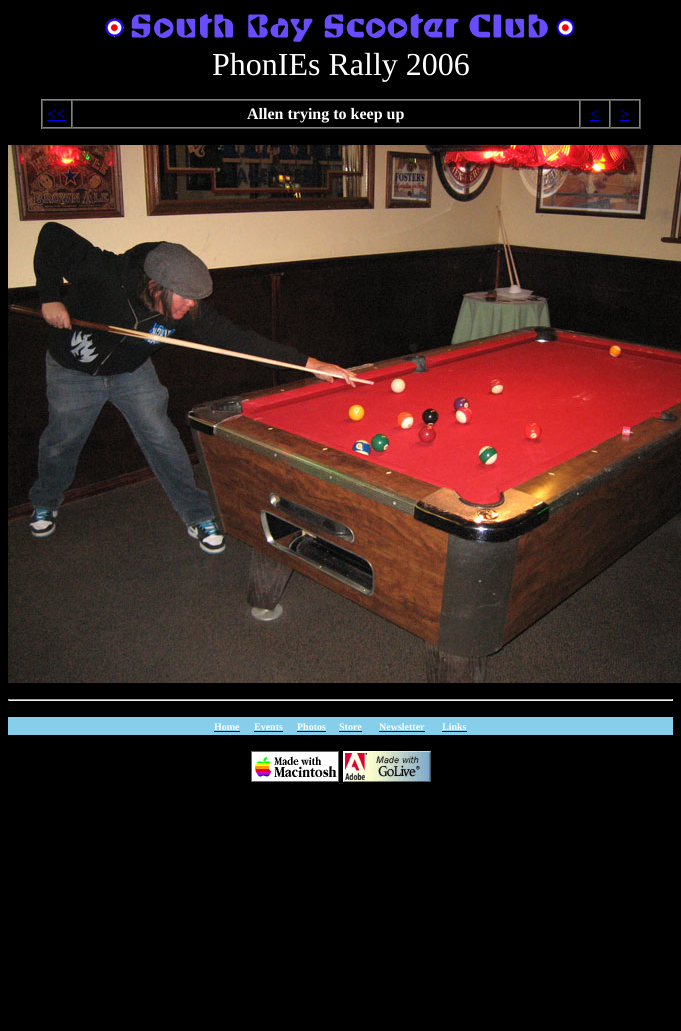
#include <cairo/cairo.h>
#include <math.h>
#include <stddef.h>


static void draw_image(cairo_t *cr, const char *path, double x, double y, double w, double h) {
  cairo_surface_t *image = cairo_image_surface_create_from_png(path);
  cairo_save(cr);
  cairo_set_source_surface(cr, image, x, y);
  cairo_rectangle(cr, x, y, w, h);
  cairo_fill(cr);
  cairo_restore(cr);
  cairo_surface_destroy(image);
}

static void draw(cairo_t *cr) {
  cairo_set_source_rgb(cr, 0, 0, 0);
  cairo_paint(cr);
  draw_image(cr, "images/1.png", 105, 9, 470, 33);
  cairo_set_source_rgb(cr, 128 / 255.0, 128 / 255.0, 128 / 255.0);
  cairo_rectangle(cr, 41, 99, 600, 1);
  cairo_fill(cr);
  cairo_set_source_rgb(cr, 85 / 255.0, 85 / 255.0, 85 / 255.0);
  cairo_rectangle(cr, 640, 99, 1, 30);
  cairo_fill(cr);
  cairo_rectangle(cr, 41, 128, 600, 1);
  cairo_fill(cr);
  cairo_set_source_rgb(cr, 128 / 255.0, 128 / 255.0, 128 / 255.0);
  cairo_rectangle(cr, 41, 99, 1, 30);
  cairo_fill(cr);
  cairo_set_source_rgb(cr, 85 / 255.0, 85 / 255.0, 85 / 255.0);
  cairo_rectangle(cr, 42, 100, 598, 1);
  cairo_fill(cr);
  cairo_set_source_rgb(cr, 128 / 255.0, 128 / 255.0, 128 / 255.0);
  cairo_rectangle(cr, 71, 100, 1, 28);
  cairo_fill(cr);
  cairo_rectangle(cr, 42, 127, 30, 1);
  cairo_fill(cr);
  cairo_set_source_rgb(cr, 85 / 255.0, 85 / 255.0, 85 / 255.0);
  cairo_rectangle(cr, 42, 100, 1, 28);
  cairo_fill(cr);
  cairo_set_source_rgb(cr, 0, 0, 238 / 255.0);
  cairo_rectangle(cr, 47, 120, 19, 1);
  cairo_fill(cr);
  cairo_set_source_rgb(cr, 128 / 255.0, 128 / 255.0, 128 / 255.0);
  cairo_rectangle(cr, 579, 100, 1, 28);
  cairo_fill(cr);
  cairo_rectangle(cr, 72, 127, 508, 1);
  cairo_fill(cr);
  cairo_set_source_rgb(cr, 85 / 255.0, 85 / 255.0, 85 / 255.0);
  cairo_rectangle(cr, 72, 100, 1, 28);
  cairo_fill(cr);
  cairo_set_source_rgb(cr, 128 / 255.0, 128 / 255.0, 128 / 255.0);
  cairo_rectangle(cr, 609, 100, 1, 28);
  cairo_fill(cr);
  cairo_rectangle(cr, 580, 127, 30, 1);
  cairo_fill(cr);
  cairo_set_source_rgb(cr, 85 / 255.0, 85 / 255.0, 85 / 255.0);
  cairo_rectangle(cr, 580, 100, 1, 28);
  cairo_fill(cr);
  cairo_set_source_rgb(cr, 0, 0, 238 / 255.0);
  cairo_rectangle(cr, 590, 120, 9, 1);
  cairo_fill(cr);
  cairo_set_source_rgb(cr, 128 / 255.0, 128 / 255.0, 128 / 255.0);
  cairo_rectangle(cr, 639, 100, 1, 28);
  cairo_fill(cr);
  cairo_rectangle(cr, 610, 127, 30, 1);
  cairo_fill(cr);
  cairo_set_source_rgb(cr, 85 / 255.0, 85 / 255.0, 85 / 255.0);
  cairo_rectangle(cr, 610, 100, 1, 28);
  cairo_fill(cr);
  cairo_set_source_rgb(cr, 0, 0, 238 / 255.0);
  cairo_rectangle(cr, 620, 120, 9, 1);
  cairo_fill(cr);
  draw_image(cr, "images/2.png", 8, 145, 673, 538);
  cairo_set_source_rgb(cr, 159 / 255.0, 159 / 255.0, 159 / 255.0);
  cairo_rectangle(cr, 8, 699, 665, 1);
  cairo_fill(cr);
  cairo_set_source_rgb(cr, 238 / 255.0, 238 / 255.0, 238 / 255.0);
  cairo_rectangle(cr, 672, 699, 1, 2);
  cairo_fill(cr);
  cairo_rectangle(cr, 8, 700, 665, 1);
  cairo_fill(cr);
  cairo_set_source_rgb(cr, 159 / 255.0, 159 / 255.0, 159 / 255.0);
  cairo_rectangle(cr, 8, 699, 1, 2);
  cairo_fill(cr);
  cairo_set_source_rgb(cr, 135 / 255.0, 206 / 255.0, 235 / 255.0);
  cairo_rectangle(cr, 8, 717, 665, 18);
  cairo_fill(cr);
  cairo_set_source_rgb(cr, 0, 0, 238 / 255.0);
  cairo_rectangle(cr, 214, 731, 26, 1);
  cairo_fill(cr);
  cairo_rectangle(cr, 254, 731, 29, 1);
  cairo_fill(cr);
  cairo_rectangle(cr, 297, 731, 29, 1);
  cairo_fill(cr);
  cairo_rectangle(cr, 339, 731, 23, 1);
  cairo_fill(cr);
  cairo_rectangle(cr, 379, 731, 46, 1);
  cairo_fill(cr);
  cairo_rectangle(cr, 442, 731, 25, 1);
  cairo_fill(cr);
  draw_image(cr, "images/3.png", 251, 751, 88, 31);
  draw_image(cr, "images/4.png", 343, 751, 88, 31);
  cairo_rectangle(cr, 339, 783, 4, 1);
  cairo_fill(cr);
  cairo_select_font_face(cr, "Liberation Serif", CAIRO_FONT_SLANT_NORMAL, CAIRO_FONT_WEIGHT_NORMAL);
  cairo_set_font_size(cr, 32);
  cairo_set_source_rgb(cr, 1, 1, 1);
  cairo_move_to(cr, 212, 75);
  cairo_show_text(cr, "PhonIEs Rally 2006");
  cairo_set_font_size(cr, 16);
  cairo_set_source_rgb(cr, 0, 0, 238 / 255.0);
  cairo_move_to(cr, 47, 119);
  cairo_show_text(cr, "<<");
  cairo_select_font_face(cr, "Liberation Serif", CAIRO_FONT_SLANT_NORMAL, CAIRO_FONT_WEIGHT_BOLD);
  cairo_set_source_rgb(cr, 1, 1, 1);
  cairo_move_to(cr, 247, 119);
  cairo_show_text(cr, "Allen trying to keep up");
  cairo_select_font_face(cr, "Liberation Serif", CAIRO_FONT_SLANT_NORMAL, CAIRO_FONT_WEIGHT_NORMAL);
  cairo_set_source_rgb(cr, 0, 0, 238 / 255.0);
  cairo_move_to(cr, 590, 119);
  cairo_show_text(cr, "<");
  cairo_move_to(cr, 620, 119);
  cairo_show_text(cr, ">");
  cairo_select_font_face(cr, "Liberation Serif", CAIRO_FONT_SLANT_NORMAL, CAIRO_FONT_WEIGHT_BOLD);
  cairo_set_font_size(cr, 10);
  cairo_set_source_rgb(cr, 1, 1, 1);
  cairo_move_to(cr, 214, 730);
  cairo_show_text(cr, "Home");
  cairo_move_to(cr, 254, 730);
  cairo_show_text(cr, "Events");
  cairo_move_to(cr, 297, 730);
  cairo_show_text(cr, "Photos");
  cairo_move_to(cr, 339, 730);
  cairo_show_text(cr, "Store");
  cairo_move_to(cr, 379, 730);
  cairo_show_text(cr, "Newsletter");
  cairo_move_to(cr, 442, 730);
  cairo_show_text(cr, "Links");
}

int main(void) {
  cairo_surface_t *surface = cairo_image_surface_create(CAIRO_FORMAT_RGB24, 681, 1031);
  cairo_t *cr = cairo_create(surface);
  cairo_font_options_t *options = cairo_font_options_create();
  cairo_font_options_set_hint_metrics(options, CAIRO_HINT_METRICS_OFF);
  cairo_font_options_set_hint_style(options, CAIRO_HINT_STYLE_NONE);
  cairo_set_font_options(cr, options);
  cairo_set_miter_limit(cr, 4);
  draw(cr);
  cairo_surface_write_to_png(surface, "out.png");
  cairo_font_options_destroy(options);
  cairo_destroy(cr);
  cairo_surface_destroy(surface);
  return 0;
}
